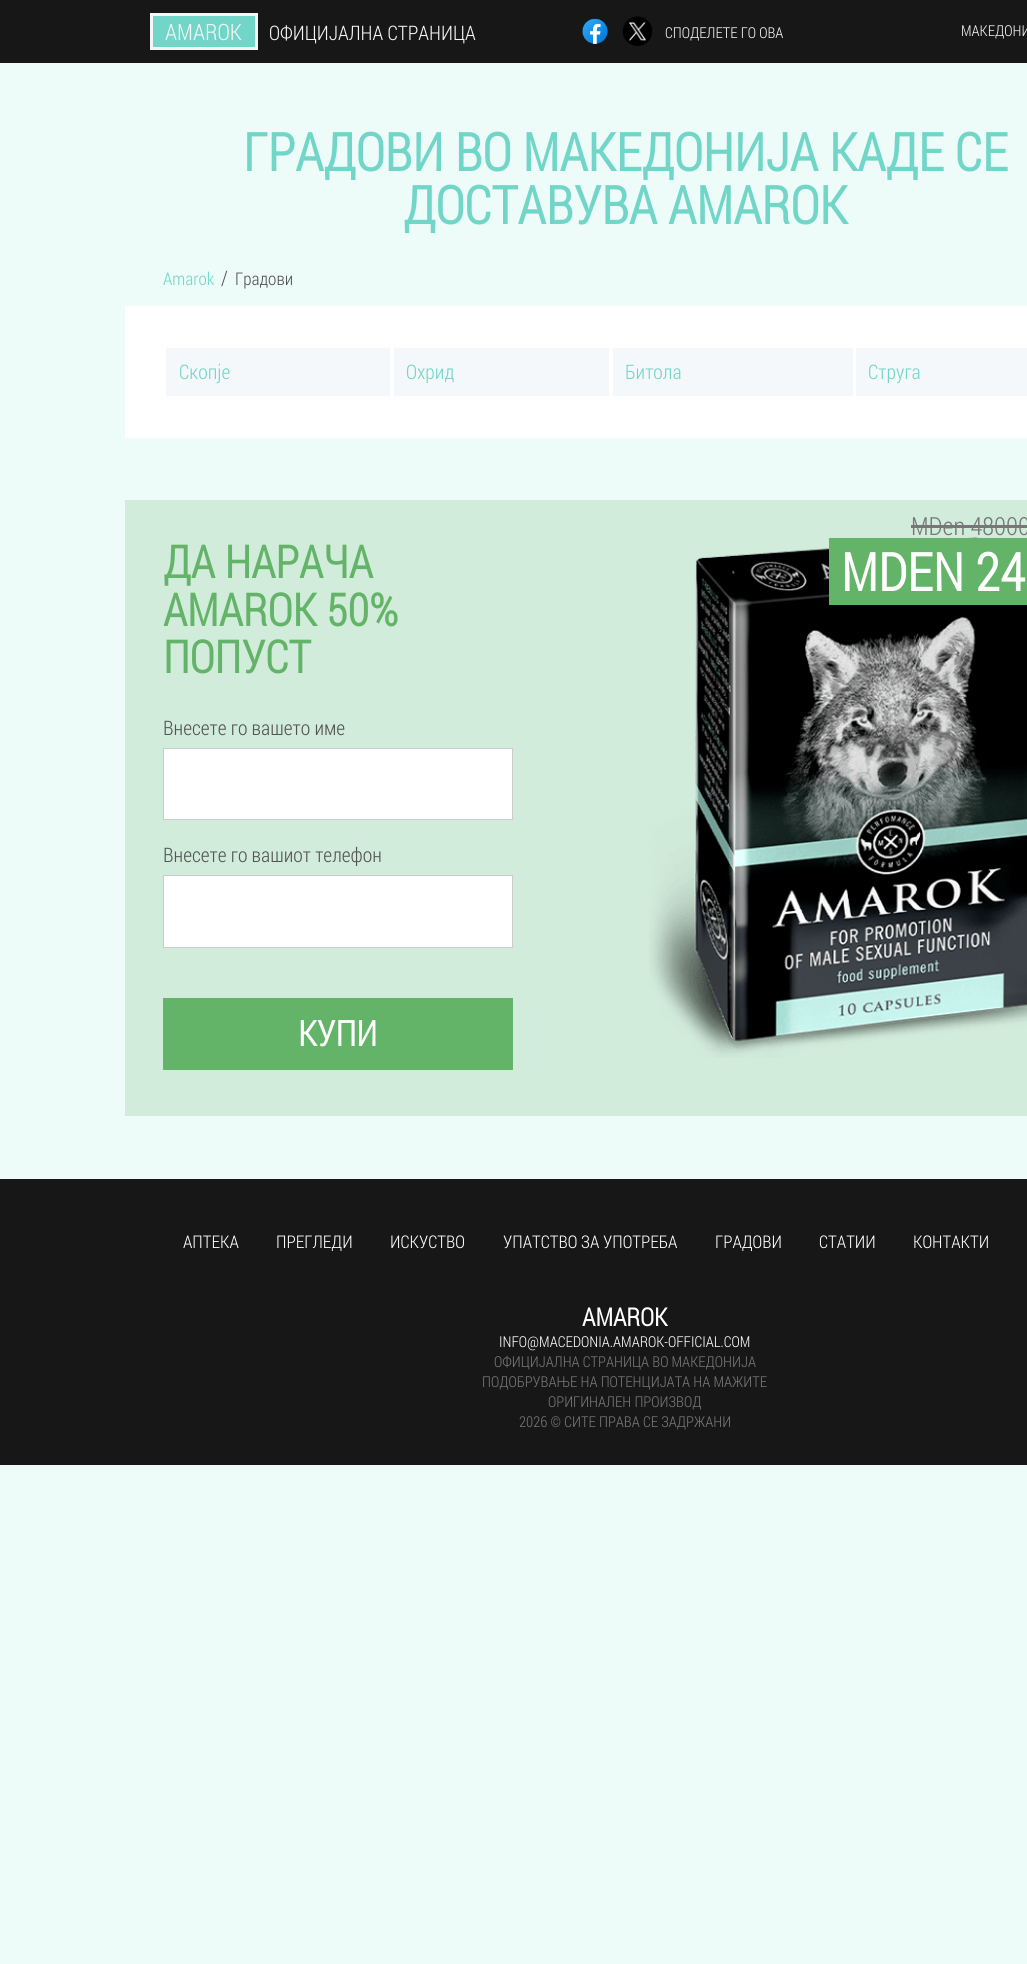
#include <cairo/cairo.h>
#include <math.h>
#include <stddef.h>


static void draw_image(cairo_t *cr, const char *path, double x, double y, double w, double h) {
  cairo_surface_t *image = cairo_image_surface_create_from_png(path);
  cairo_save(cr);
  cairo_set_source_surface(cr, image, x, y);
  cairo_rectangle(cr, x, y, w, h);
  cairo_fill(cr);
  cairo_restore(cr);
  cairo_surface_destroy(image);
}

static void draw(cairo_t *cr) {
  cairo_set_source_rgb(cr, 237 / 255.0, 251 / 255.0, 249 / 255.0);
  cairo_paint(cr);
  cairo_set_source_rgb(cr, 23 / 255.0, 23 / 255.0, 23 / 255.0);
  cairo_rectangle(cr, 0, 0, 1027, 63);
  cairo_fill(cr);
  cairo_set_source_rgb(cr, 113 / 255.0, 214 / 255.0, 200 / 255.0);
  cairo_rectangle(cr, 151.5, 14.5, 105, 34);
  cairo_fill_preserve(cr);
  cairo_set_source_rgb(cr, 245 / 255.0, 245 / 255.0, 245 / 255.0);
  cairo_set_line_width(cr, 3);
  cairo_stroke(cr);
  draw_image(cr, "images/1.png", 582, 18, 26, 26);
  draw_image(cr, "images/2.png", 622, 16, 31, 30);
  cairo_set_source_rgb(cr, 1, 1, 1);
  cairo_rectangle(cr, 125, 306, 902, 132);
  cairo_fill(cr);
  cairo_set_source_rgb(cr, 245 / 255.0, 248 / 255.0, 250 / 255.0);
  cairo_rectangle(cr, 166, 348, 224, 48);
  cairo_fill(cr);
  cairo_rectangle(cr, 394, 348, 215, 48);
  cairo_fill(cr);
  cairo_rectangle(cr, 613, 348, 240, 48);
  cairo_fill(cr);
  cairo_rectangle(cr, 856, 348, 171, 48);
  cairo_fill(cr);
  cairo_set_source_rgb(cr, 210 / 255.0, 236 / 255.0, 219 / 255.0);
  cairo_rectangle(cr, 125, 500, 902, 616);
  cairo_fill(cr);
  cairo_set_source_rgb(cr, 1, 1, 1);
  cairo_rectangle(cr, 163.5, 748.5, 349, 71);
  cairo_fill_preserve(cr);
  cairo_set_source_rgb(cr, 204 / 255.0, 204 / 255.0, 204 / 255.0);
  cairo_set_line_width(cr, 1);
  cairo_stroke(cr);
  cairo_set_source_rgb(cr, 1, 1, 1);
  cairo_rectangle(cr, 163.5, 875.5, 349, 72);
  cairo_fill_preserve(cr);
  cairo_set_source_rgb(cr, 204 / 255.0, 204 / 255.0, 204 / 255.0);
  cairo_stroke(cr);
  cairo_set_source_rgb(cr, 99 / 255.0, 180 / 255.0, 104 / 255.0);
  cairo_rectangle(cr, 163, 998, 350, 72);
  cairo_fill(cr);
  draw_image(cr, "images/3.png", 649, 537, 378, 521);
  cairo_rectangle(cr, 829, 538, 198, 67);
  cairo_fill(cr);
  cairo_set_source_rgb(cr, 119 / 255.0, 119 / 255.0, 119 / 255.0);
  cairo_rectangle(cr, 911, 525, 116, 3);
  cairo_fill(cr);
  cairo_set_source_rgb(cr, 23 / 255.0, 23 / 255.0, 23 / 255.0);
  cairo_rectangle(cr, 0, 1179, 1027, 286);
  cairo_fill(cr);
  cairo_select_font_face(cr, "Roboto Condensed Light", CAIRO_FONT_SLANT_NORMAL, CAIRO_FONT_WEIGHT_NORMAL);
  cairo_set_font_size(cr, 22.5);
  cairo_set_source_rgb(cr, 245 / 255.0, 245 / 255.0, 245 / 255.0);
  cairo_move_to(cr, 165, 40);
  cairo_show_text(cr, "AMAROK");
  cairo_set_font_size(cr, 20);
  cairo_move_to(cr, 269, 40);
  cairo_show_text(cr, "ОФИЦИЈАЛНА СТРАНИЦА");
  cairo_set_font_size(cr, 15);
  cairo_move_to(cr, 665, 38);
  cairo_show_text(cr, "СПОДЕЛЕТЕ ГО ОВА");
  cairo_move_to(cr, 961, 36);
  cairo_show_text(cr, "МАКЕДОНИ");
  cairo_select_font_face(cr, "Roboto Condensed", CAIRO_FONT_SLANT_NORMAL, CAIRO_FONT_WEIGHT_BOLD);
  cairo_set_font_size(cr, 52.5);
  cairo_set_source_rgb(cr, 113 / 255.0, 214 / 255.0, 200 / 255.0);
  cairo_move_to(cr, 243, 171);
  cairo_show_text(cr, "ГРАДОВИ ВО МАКЕДОНИЈА КАДЕ СЕ");
  cairo_move_to(cr, 403, 224);
  cairo_show_text(cr, "ДОСТАВУВА AMAROK");
  cairo_select_font_face(cr, "Roboto Condensed Light", CAIRO_FONT_SLANT_NORMAL, CAIRO_FONT_WEIGHT_NORMAL);
  cairo_set_font_size(cr, 17.5);
  cairo_move_to(cr, 163, 285);
  cairo_show_text(cr, "Amarok");
  cairo_set_font_size(cr, 20);
  cairo_set_source_rgb(cr, 84 / 255.0, 84 / 255.0, 84 / 255.0);
  cairo_move_to(cr, 221, 285);
  cairo_show_text(cr, "/");
  cairo_set_font_size(cr, 17.5);
  cairo_move_to(cr, 235, 285);
  cairo_show_text(cr, "Градови");
  cairo_set_font_size(cr, 20);
  cairo_set_source_rgb(cr, 113 / 255.0, 214 / 255.0, 200 / 255.0);
  cairo_move_to(cr, 179, 379);
  cairo_show_text(cr, "Скопје");
  cairo_move_to(cr, 406, 379);
  cairo_show_text(cr, "Охрид");
  cairo_move_to(cr, 625, 379);
  cairo_show_text(cr, "Битола");
  cairo_move_to(cr, 868, 379);
  cairo_show_text(cr, "Струга");
  cairo_select_font_face(cr, "Roboto Condensed", CAIRO_FONT_SLANT_NORMAL, CAIRO_FONT_WEIGHT_BOLD);
  cairo_set_font_size(cr, 45);
  cairo_set_source_rgb(cr, 99 / 255.0, 180 / 255.0, 104 / 255.0);
  cairo_move_to(cr, 163, 578);
  cairo_show_text(cr, "ДА НАРАЧА");
  cairo_move_to(cr, 163, 626);
  cairo_show_text(cr, "AMAROK 50%");
  cairo_move_to(cr, 163, 673);
  cairo_show_text(cr, "ПОПУСТ");
  cairo_select_font_face(cr, "Roboto Condensed Light", CAIRO_FONT_SLANT_NORMAL, CAIRO_FONT_WEIGHT_NORMAL);
  cairo_set_font_size(cr, 20);
  cairo_set_source_rgb(cr, 84 / 255.0, 84 / 255.0, 84 / 255.0);
  cairo_move_to(cr, 163, 735);
  cairo_show_text(cr, "Внесете го вашето име");
  cairo_move_to(cr, 163, 862);
  cairo_show_text(cr, "Внесете го вашиот телефон");
  cairo_select_font_face(cr, "Roboto Condensed", CAIRO_FONT_SLANT_NORMAL, CAIRO_FONT_WEIGHT_BOLD);
  cairo_set_font_size(cr, 35);
  cairo_set_source_rgb(cr, 1, 1, 1);
  cairo_move_to(cr, 298, 1046);
  cairo_show_text(cr, "КУПИ");
  cairo_select_font_face(cr, "Roboto Condensed Light", CAIRO_FONT_SLANT_NORMAL, CAIRO_FONT_WEIGHT_NORMAL);
  cairo_set_font_size(cr, 25);
  cairo_set_source_rgb(cr, 119 / 255.0, 119 / 255.0, 119 / 255.0);
  cairo_move_to(cr, 911, 535);
  cairo_show_text(cr, "MDen 48000");
  cairo_select_font_face(cr, "Roboto Condensed", CAIRO_FONT_SLANT_NORMAL, CAIRO_FONT_WEIGHT_BOLD);
  cairo_set_font_size(cr, 52.5);
  cairo_set_source_rgb(cr, 1, 1, 1);
  cairo_move_to(cr, 841, 591);
  cairo_show_text(cr, "MDEN 24");
  cairo_select_font_face(cr, "Roboto Condensed Light", CAIRO_FONT_SLANT_NORMAL, CAIRO_FONT_WEIGHT_NORMAL);
  cairo_set_font_size(cr, 17.5);
  cairo_move_to(cr, 183, 1248);
  cairo_show_text(cr, "АПТЕКА");
  cairo_move_to(cr, 276, 1248);
  cairo_show_text(cr, "ПРЕГЛЕДИ");
  cairo_move_to(cr, 390, 1248);
  cairo_show_text(cr, "ИСКУСТВО");
  cairo_move_to(cr, 503, 1248);
  cairo_show_text(cr, "УПАТСТВО ЗА УПОТРЕБА");
  cairo_move_to(cr, 715, 1248);
  cairo_show_text(cr, "ГРАДОВИ");
  cairo_move_to(cr, 819, 1248);
  cairo_show_text(cr, "СТАТИИ");
  cairo_move_to(cr, 913, 1248);
  cairo_show_text(cr, "КОНТАКТИ");
  cairo_select_font_face(cr, "Roboto Condensed", CAIRO_FONT_SLANT_NORMAL, CAIRO_FONT_WEIGHT_BOLD);
  cairo_set_font_size(cr, 25);
  cairo_move_to(cr, 582, 1326);
  cairo_show_text(cr, "AMAROK");
  cairo_select_font_face(cr, "Roboto Condensed Light", CAIRO_FONT_SLANT_NORMAL, CAIRO_FONT_WEIGHT_NORMAL);
  cairo_set_font_size(cr, 15);
  cairo_move_to(cr, 499, 1347);
  cairo_show_text(cr, "INFO@MACEDONIA.AMAROK-OFFICIAL.COM");
  cairo_set_source_rgb(cr, 119 / 255.0, 119 / 255.0, 119 / 255.0);
  cairo_move_to(cr, 494, 1367);
  cairo_show_text(cr, "ОФИЦИЈАЛНА СТРАНИЦА ВО МАКЕДОНИЈА");
  cairo_move_to(cr, 482, 1387);
  cairo_show_text(cr, "ПОДОБРУВАЊЕ НА ПОТЕНЦИЈАТА НА МАЖИТЕ");
  cairo_move_to(cr, 548, 1407);
  cairo_show_text(cr, "ОРИГИНАЛЕН ПРОИЗВОД");
  cairo_move_to(cr, 519, 1427);
  cairo_show_text(cr, "2026 © СИТЕ ПРАВА СЕ ЗАДРЖАНИ");
}

int main(void) {
  cairo_surface_t *surface = cairo_image_surface_create(CAIRO_FORMAT_RGB24, 1027, 1964);
  cairo_t *cr = cairo_create(surface);
  cairo_font_options_t *options = cairo_font_options_create();
  cairo_font_options_set_hint_metrics(options, CAIRO_HINT_METRICS_OFF);
  cairo_font_options_set_hint_style(options, CAIRO_HINT_STYLE_NONE);
  cairo_set_font_options(cr, options);
  cairo_set_miter_limit(cr, 4);
  draw(cr);
  cairo_surface_write_to_png(surface, "out.png");
  cairo_font_options_destroy(options);
  cairo_destroy(cr);
  cairo_surface_destroy(surface);
  return 0;
}
